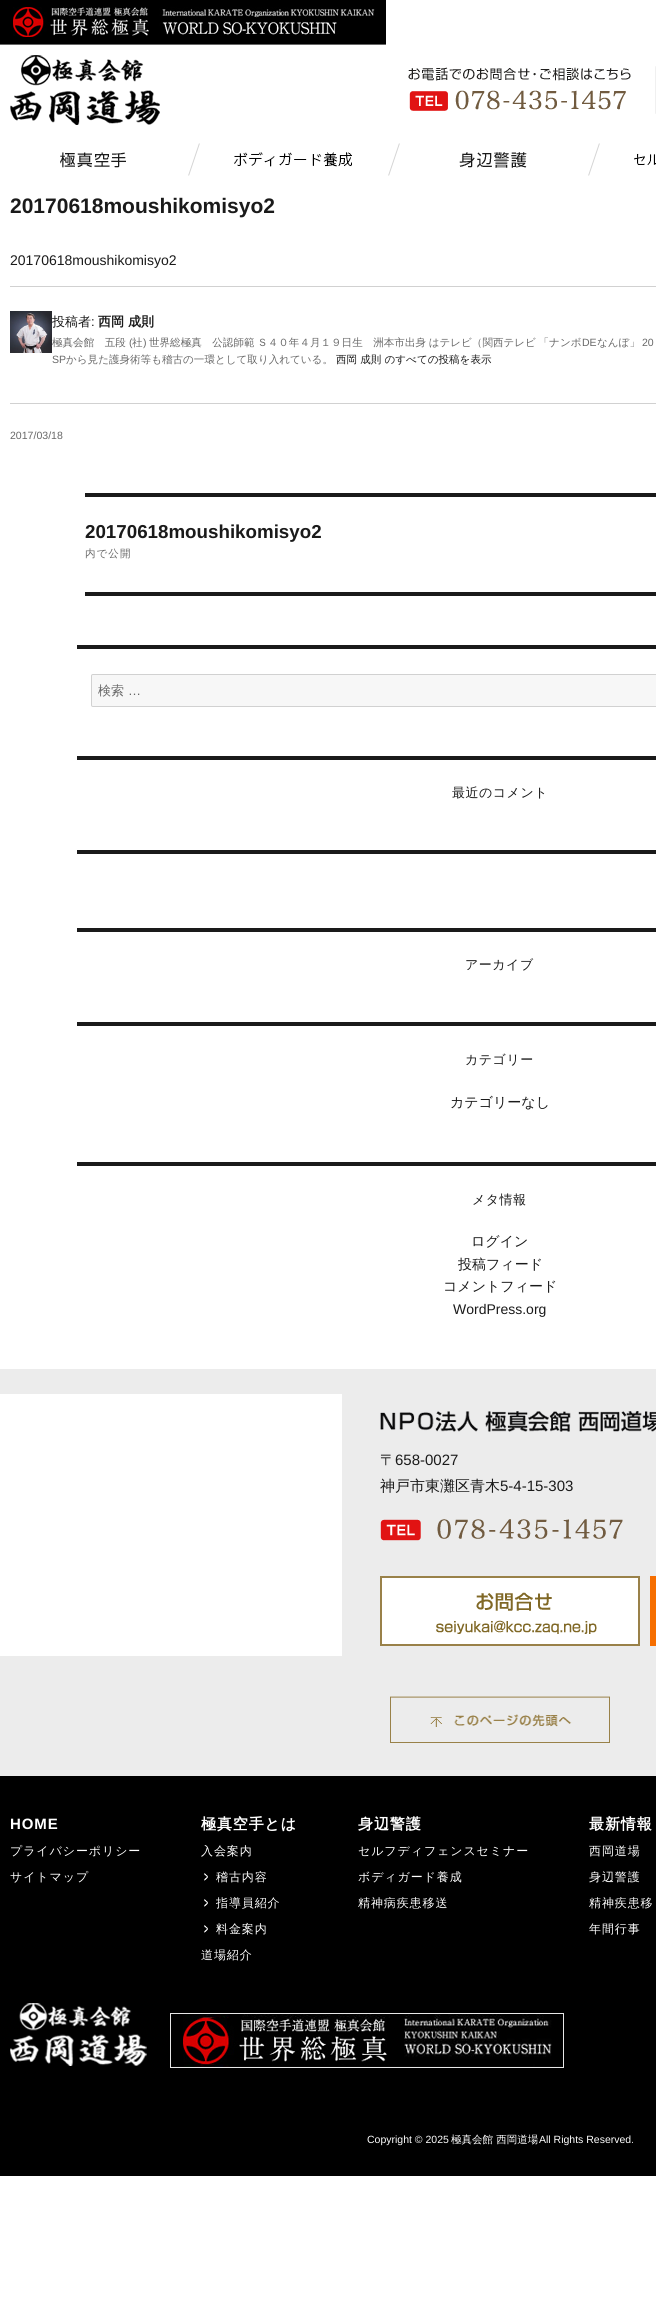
#include <cairo/cairo.h>
#include <math.h>
#include <stddef.h>


static void draw_spaced(cairo_t *cr, double x, double y, const char *s, double letter, double word) {
  cairo_move_to(cr, x, y);
  while (*s) {
    char ch[5] = {0};
    int n = 0;
    do ch[n++] = *s++; while ((*s & 0xC0) == 0x80);
    cairo_show_text(cr, ch);
    cairo_rel_move_to(cr, letter + word * (*ch == ' '), 0);
  }
}

static void draw_image(cairo_t *cr, const char *path, double x, double y, double w, double h) {
  cairo_surface_t *image = cairo_image_surface_create_from_png(path);
  cairo_save(cr);
  cairo_set_source_surface(cr, image, x, y);
  cairo_rectangle(cr, x, y, w, h);
  cairo_fill(cr);
  cairo_restore(cr);
  cairo_surface_destroy(image);
}

static void draw(cairo_t *cr) {
  cairo_set_source_rgb(cr, 1, 1, 1);
  cairo_paint(cr);
  draw_image(cr, "images/1.png", 0, 0, 386, 45);
  draw_image(cr, "images/2.png", 10, 55, 150, 70);
  draw_image(cr, "images/3.png", 408, 67, 223, 44);
  draw_image(cr, "images/4.png", 655, 66, 1, 48);
  draw_image(cr, "images/5.png", 188, 143, 12, 33);
  draw_image(cr, "images/6.png", 60, 152, 66, 16);
  draw_image(cr, "images/5.png", 388, 143, 12, 33);
  draw_image(cr, "images/7.png", 234, 152, 118, 15);
  draw_image(cr, "images/5.png", 588, 143, 12, 33);
  draw_image(cr, "images/8.png", 459, 152, 68, 16);
  draw_image(cr, "images/9.png", 634, 153, 22, 12);
  cairo_set_source_rgb(cr, 209 / 255.0, 209 / 255.0, 209 / 255.0);
  cairo_rectangle(cr, 10, 286, 646, 1);
  cairo_fill(cr);
  cairo_rectangle(cr, 10, 403, 646, 1);
  cairo_fill(cr);
  draw_image(cr, "images/10.png", 10, 311, 42, 42);
  cairo_set_source_rgb(cr, 26 / 255.0, 26 / 255.0, 26 / 255.0);
  cairo_rectangle(cr, 85, 493, 571, 4);
  cairo_fill(cr);
  cairo_rectangle(cr, 85, 592, 571, 4);
  cairo_fill(cr);
  cairo_rectangle(cr, 77, 645, 579, 4);
  cairo_fill(cr);
  cairo_set_source_rgb(cr, 247 / 255.0, 247 / 255.0, 247 / 255.0);
  cairo_new_path(cr);
  cairo_move_to(cr, 93, 674.5);
  cairo_line_to(cr, 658.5, 674.5);
  cairo_line_to(cr, 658.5, 706.5);
  cairo_line_to(cr, 93, 706.5);
  cairo_curve_to(cr, 92, 706.5, 91.5, 706, 91.5, 705);
  cairo_line_to(cr, 91.5, 676);
  cairo_curve_to(cr, 91.5, 675, 92, 674.5, 93, 674.5);
  cairo_close_path(cr);
  cairo_fill_preserve(cr);
  cairo_set_source_rgb(cr, 209 / 255.0, 209 / 255.0, 209 / 255.0);
  cairo_set_line_width(cr, 1);
  cairo_stroke(cr);
  cairo_set_source_rgb(cr, 26 / 255.0, 26 / 255.0, 26 / 255.0);
  cairo_rectangle(cr, 77, 756, 579, 4);
  cairo_fill(cr);
  cairo_rectangle(cr, 77, 850, 579, 4);
  cairo_fill(cr);
  cairo_rectangle(cr, 77, 928, 579, 4);
  cairo_fill(cr);
  cairo_rectangle(cr, 77, 1022, 579, 4);
  cairo_fill(cr);
  cairo_rectangle(cr, 77, 1162, 579, 4);
  cairo_fill(cr);
  cairo_set_source_rgb(cr, 236 / 255.0, 236 / 255.0, 236 / 255.0);
  cairo_rectangle(cr, 0, 1369, 656, 407);
  cairo_fill(cr);
  cairo_set_source_rgb(cr, 1, 1, 1);
  cairo_rectangle(cr, 0, 1394, 342, 262);
  cairo_fill(cr);
  draw_image(cr, "images/11.png", 380, 1411, 276, 21);
  draw_image(cr, "images/12.png", 380, 1519, 243, 22);
  draw_image(cr, "images/13.png", 380, 1576, 260, 70);
  cairo_set_source_rgb(cr, 246 / 255.0, 110 / 255.0, 0);
  cairo_rectangle(cr, 650, 1576, 6, 70);
  cairo_fill(cr);
  cairo_set_source_rgb(cr, 0, 0, 0);
  cairo_rectangle(cr, 0, 1776, 656, 400);
  cairo_fill(cr);
  draw_image(cr, "images/14.png", 390, 1696, 220, 47);
  draw_image(cr, "images/15.png", 204, 1873, 4, 8);
  draw_image(cr, "images/15.png", 204, 1899, 4, 8);
  draw_image(cr, "images/15.png", 204, 1925, 4, 8);
  draw_image(cr, "images/16.png", 10, 2003, 137, 63);
  draw_image(cr, "images/17.png", 170, 2013, 394, 55);
  cairo_select_font_face(cr, "Liberation Sans", CAIRO_FONT_SLANT_NORMAL, CAIRO_FONT_WEIGHT_BOLD);
  cairo_set_font_size(cr, 21);
  cairo_set_source_rgb(cr, 26 / 255.0, 26 / 255.0, 26 / 255.0);
  cairo_move_to(cr, 10, 213);
  cairo_show_text(cr, "20170618moushikomisyo2");
  cairo_select_font_face(cr, "Liberation Sans", CAIRO_FONT_SLANT_NORMAL, CAIRO_FONT_WEIGHT_NORMAL);
  cairo_set_font_size(cr, 14);
  cairo_move_to(cr, 10, 265);
  cairo_show_text(cr, "20170618moushikomisyo2");
  cairo_select_font_face(cr, "WenQuanYi Zen Hei Medium", CAIRO_FONT_SLANT_NORMAL, CAIRO_FONT_WEIGHT_NORMAL);
  cairo_set_font_size(cr, 13);
  cairo_move_to(cr, 52, 326);
  cairo_show_text(cr, "投稿者");
  cairo_select_font_face(cr, "Liberation Sans", CAIRO_FONT_SLANT_NORMAL, CAIRO_FONT_WEIGHT_NORMAL);
  cairo_move_to(cr, 91, 326);
  cairo_show_text(cr, ":");
  cairo_select_font_face(cr, "WenQuanYi Zen Hei", CAIRO_FONT_SLANT_NORMAL, CAIRO_FONT_WEIGHT_BOLD);
  cairo_move_to(cr, 98, 326);
  cairo_show_text(cr, "西岡 成則");
  cairo_select_font_face(cr, "WenQuanYi Zen Hei Medium", CAIRO_FONT_SLANT_NORMAL, CAIRO_FONT_WEIGHT_NORMAL);
  cairo_set_font_size(cr, 10.55);
  cairo_set_source_rgb(cr, 104 / 255.0, 104 / 255.0, 104 / 255.0);
  cairo_move_to(cr, 52, 346);
  cairo_show_text(cr, "極真会館　五段");
  cairo_select_font_face(cr, "Liberation Sans", CAIRO_FONT_SLANT_NORMAL, CAIRO_FONT_WEIGHT_NORMAL);
  cairo_move_to(cr, 129, 346);
  cairo_show_text(cr, "(");
  cairo_select_font_face(cr, "WenQuanYi Zen Hei Medium", CAIRO_FONT_SLANT_NORMAL, CAIRO_FONT_WEIGHT_NORMAL);
  cairo_move_to(cr, 132, 346);
  cairo_show_text(cr, "社");
  cairo_select_font_face(cr, "Liberation Sans", CAIRO_FONT_SLANT_NORMAL, CAIRO_FONT_WEIGHT_NORMAL);
  cairo_move_to(cr, 143, 346);
  cairo_show_text(cr, ")");
  cairo_select_font_face(cr, "WenQuanYi Zen Hei Medium", CAIRO_FONT_SLANT_NORMAL, CAIRO_FONT_WEIGHT_NORMAL);
  draw_spaced(cr, 149, 346, "世界総極真　公認師範 Ｓ４０年４月１９日生　洲本市出身 はテレビ（関西テレビ 「ナンボ", 0, -0.5);
  cairo_select_font_face(cr, "Liberation Sans", CAIRO_FONT_SLANT_NORMAL, CAIRO_FONT_WEIGHT_NORMAL);
  cairo_move_to(cr, 582, 346);
  cairo_show_text(cr, "DE");
  cairo_select_font_face(cr, "WenQuanYi Zen Hei Medium", CAIRO_FONT_SLANT_NORMAL, CAIRO_FONT_WEIGHT_NORMAL);
  cairo_move_to(cr, 597, 346);
  cairo_show_text(cr, "なんぼ」");
  cairo_select_font_face(cr, "Liberation Sans", CAIRO_FONT_SLANT_NORMAL, CAIRO_FONT_WEIGHT_NORMAL);
  cairo_move_to(cr, 642, 346);
  cairo_show_text(cr, "20");
  cairo_move_to(cr, 52, 363);
  cairo_show_text(cr, "SP");
  cairo_select_font_face(cr, "WenQuanYi Zen Hei Medium", CAIRO_FONT_SLANT_NORMAL, CAIRO_FONT_WEIGHT_NORMAL);
  cairo_move_to(cr, 66, 363);
  cairo_show_text(cr, "から見た護身術等も稽古の一環として取り入れている。");
  cairo_set_source_rgb(cr, 26 / 255.0, 26 / 255.0, 26 / 255.0);
  cairo_move_to(cr, 336, 363);
  cairo_show_text(cr, "西岡 成則 のすべての投稿を表示");
  cairo_select_font_face(cr, "Liberation Sans", CAIRO_FONT_SLANT_NORMAL, CAIRO_FONT_WEIGHT_NORMAL);
  cairo_set_source_rgb(cr, 104 / 255.0, 104 / 255.0, 104 / 255.0);
  cairo_move_to(cr, 10, 439);
  cairo_show_text(cr, "2017/03/18");
  cairo_select_font_face(cr, "Liberation Sans", CAIRO_FONT_SLANT_NORMAL, CAIRO_FONT_WEIGHT_BOLD);
  cairo_set_font_size(cr, 18.75);
  cairo_set_source_rgb(cr, 26 / 255.0, 26 / 255.0, 26 / 255.0);
  cairo_move_to(cr, 85, 538);
  cairo_show_text(cr, "20170618moushikomisyo2");
  cairo_select_font_face(cr, "WenQuanYi Zen Hei Medium", CAIRO_FONT_SLANT_NORMAL, CAIRO_FONT_WEIGHT_NORMAL);
  cairo_set_font_size(cr, 10.55);
  cairo_set_source_rgb(cr, 104 / 255.0, 104 / 255.0, 104 / 255.0);
  draw_spaced(cr, 85, 557, "内で公開", 1, 0);
  cairo_set_font_size(cr, 13);
  cairo_move_to(cr, 98, 695);
  cairo_show_text(cr, "検索");
  cairo_select_font_face(cr, "Liberation Sans", CAIRO_FONT_SLANT_NORMAL, CAIRO_FONT_WEIGHT_NORMAL);
  cairo_move_to(cr, 128, 695);
  cairo_show_text(cr, "…");
  cairo_select_font_face(cr, "WenQuanYi Zen Hei Medium", CAIRO_FONT_SLANT_NORMAL, CAIRO_FONT_WEIGHT_NORMAL);
  cairo_set_source_rgb(cr, 26 / 255.0, 26 / 255.0, 26 / 255.0);
  draw_spaced(cr, 452, 797, "最近のコメント", 0.5, 0);
  draw_spaced(cr, 465, 969, "アーカイブ", 0.5, 0);
  draw_spaced(cr, 465, 1064, "カテゴリー", 0.5, 0);
  cairo_set_font_size(cr, 14);
  cairo_move_to(cr, 450, 1107);
  cairo_show_text(cr, "カテゴリーなし");
  cairo_set_font_size(cr, 13);
  draw_spaced(cr, 472, 1204, "メタ情報", 0.5, 0);
  cairo_set_font_size(cr, 14);
  cairo_move_to(cr, 471, 1246);
  cairo_show_text(cr, "ログイン");
  cairo_move_to(cr, 458, 1269);
  cairo_show_text(cr, "投稿フィード");
  cairo_move_to(cr, 443, 1291);
  cairo_show_text(cr, "コメントフィード");
  cairo_select_font_face(cr, "Liberation Sans", CAIRO_FONT_SLANT_NORMAL, CAIRO_FONT_WEIGHT_NORMAL);
  cairo_move_to(cr, 453, 1314);
  cairo_show_text(cr, "WordPress.org");
  cairo_select_font_face(cr, "WenQuanYi Zen Hei Medium", CAIRO_FONT_SLANT_NORMAL, CAIRO_FONT_WEIGHT_NORMAL);
  cairo_set_font_size(cr, 15);
  cairo_move_to(cr, 380, 1465);
  cairo_show_text(cr, "〒");
  cairo_select_font_face(cr, "Liberation Sans", CAIRO_FONT_SLANT_NORMAL, CAIRO_FONT_WEIGHT_NORMAL);
  cairo_move_to(cr, 395, 1465);
  cairo_show_text(cr, "658-0027");
  cairo_select_font_face(cr, "WenQuanYi Zen Hei Medium", CAIRO_FONT_SLANT_NORMAL, CAIRO_FONT_WEIGHT_NORMAL);
  cairo_move_to(cr, 380, 1491);
  cairo_show_text(cr, "神戸市東灘区青木");
  cairo_select_font_face(cr, "Liberation Sans", CAIRO_FONT_SLANT_NORMAL, CAIRO_FONT_WEIGHT_NORMAL);
  cairo_move_to(cr, 500, 1491);
  cairo_show_text(cr, "5-4-15-303");
  cairo_select_font_face(cr, "Liberation Sans", CAIRO_FONT_SLANT_NORMAL, CAIRO_FONT_WEIGHT_BOLD);
  cairo_set_source_rgb(cr, 1, 1, 1);
  draw_spaced(cr, 10, 1829, "HOME", 0.9, 0);
  cairo_select_font_face(cr, "WenQuanYi Zen Hei Medium", CAIRO_FONT_SLANT_NORMAL, CAIRO_FONT_WEIGHT_NORMAL);
  cairo_set_font_size(cr, 12);
  draw_spaced(cr, 10, 1855, "プライバシーポリシー", 0.9, 0);
  draw_spaced(cr, 10, 1881, "サイトマップ", 0.9, 0);
  cairo_select_font_face(cr, "WenQuanYi Zen Hei", CAIRO_FONT_SLANT_NORMAL, CAIRO_FONT_WEIGHT_BOLD);
  cairo_set_font_size(cr, 15);
  draw_spaced(cr, 201, 1829, "極真空手とは", 0.9, 0);
  cairo_select_font_face(cr, "WenQuanYi Zen Hei Medium", CAIRO_FONT_SLANT_NORMAL, CAIRO_FONT_WEIGHT_NORMAL);
  cairo_set_font_size(cr, 12);
  draw_spaced(cr, 201, 1855, "入会案内", 0.9, 0);
  draw_spaced(cr, 216, 1881, "稽古内容", 0.9, 0);
  draw_spaced(cr, 216, 1907, "指導員紹介", 0.9, 0);
  draw_spaced(cr, 216, 1933, "料金案内", 0.9, 0);
  draw_spaced(cr, 201, 1959, "道場紹介", 0.9, 0);
  cairo_select_font_face(cr, "WenQuanYi Zen Hei", CAIRO_FONT_SLANT_NORMAL, CAIRO_FONT_WEIGHT_BOLD);
  cairo_set_font_size(cr, 15);
  draw_spaced(cr, 358, 1829, "身辺警護", 0.9, 0);
  cairo_select_font_face(cr, "WenQuanYi Zen Hei Medium", CAIRO_FONT_SLANT_NORMAL, CAIRO_FONT_WEIGHT_NORMAL);
  cairo_set_font_size(cr, 12);
  draw_spaced(cr, 358, 1855, "セルフディフェンスセミナー", 0.9, 0);
  draw_spaced(cr, 358, 1881, "ボディガード養成", 0.9, 0);
  draw_spaced(cr, 358, 1907, "精神病疾患移送", 0.9, 0);
  cairo_select_font_face(cr, "WenQuanYi Zen Hei", CAIRO_FONT_SLANT_NORMAL, CAIRO_FONT_WEIGHT_BOLD);
  cairo_set_font_size(cr, 15);
  draw_spaced(cr, 589, 1829, "最新情報", 0.9, 0);
  cairo_select_font_face(cr, "WenQuanYi Zen Hei Medium", CAIRO_FONT_SLANT_NORMAL, CAIRO_FONT_WEIGHT_NORMAL);
  cairo_set_font_size(cr, 12);
  draw_spaced(cr, 589, 1855, "西岡道場", 0.9, 0);
  draw_spaced(cr, 589, 1881, "身辺警護", 0.9, 0);
  draw_spaced(cr, 589, 1907, "精神疾患移", 0.9, 0);
  draw_spaced(cr, 589, 1933, "年間行事", 0.9, 0);
  cairo_select_font_face(cr, "Liberation Sans", CAIRO_FONT_SLANT_NORMAL, CAIRO_FONT_WEIGHT_NORMAL);
  cairo_set_font_size(cr, 10.5);
  cairo_move_to(cr, 367, 2143);
  cairo_show_text(cr, "Copyright © 2025");
  cairo_select_font_face(cr, "WenQuanYi Zen Hei Medium", CAIRO_FONT_SLANT_NORMAL, CAIRO_FONT_WEIGHT_NORMAL);
  cairo_move_to(cr, 451, 2143);
  cairo_show_text(cr, "極真会館 西岡道場");
  cairo_select_font_face(cr, "Liberation Sans", CAIRO_FONT_SLANT_NORMAL, CAIRO_FONT_WEIGHT_NORMAL);
  cairo_move_to(cr, 539, 2143);
  cairo_show_text(cr, "All Rights Reserved.");
}

int main(void) {
  cairo_surface_t *surface = cairo_image_surface_create(CAIRO_FORMAT_RGB24, 656, 2313);
  cairo_t *cr = cairo_create(surface);
  cairo_font_options_t *options = cairo_font_options_create();
  cairo_font_options_set_hint_metrics(options, CAIRO_HINT_METRICS_OFF);
  cairo_font_options_set_hint_style(options, CAIRO_HINT_STYLE_NONE);
  cairo_set_font_options(cr, options);
  cairo_set_miter_limit(cr, 4);
  draw(cr);
  cairo_surface_write_to_png(surface, "out.png");
  cairo_font_options_destroy(options);
  cairo_destroy(cr);
  cairo_surface_destroy(surface);
  return 0;
}
